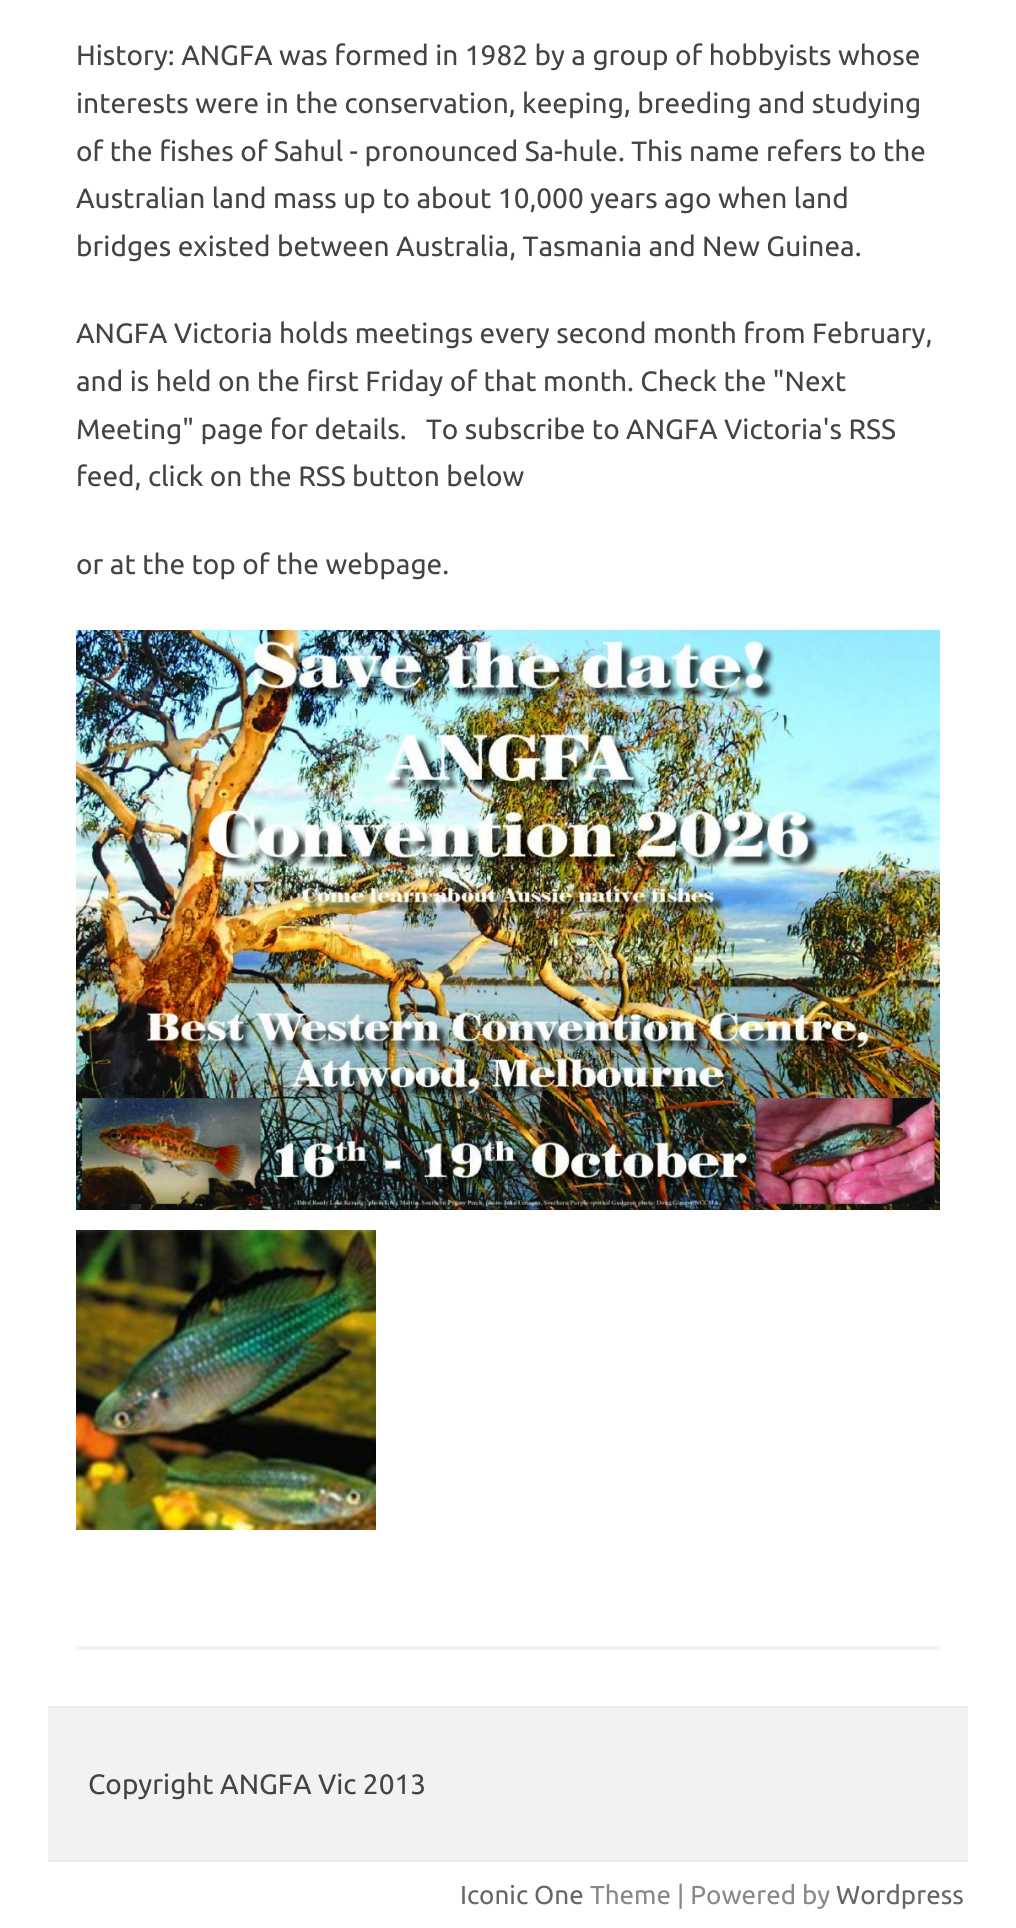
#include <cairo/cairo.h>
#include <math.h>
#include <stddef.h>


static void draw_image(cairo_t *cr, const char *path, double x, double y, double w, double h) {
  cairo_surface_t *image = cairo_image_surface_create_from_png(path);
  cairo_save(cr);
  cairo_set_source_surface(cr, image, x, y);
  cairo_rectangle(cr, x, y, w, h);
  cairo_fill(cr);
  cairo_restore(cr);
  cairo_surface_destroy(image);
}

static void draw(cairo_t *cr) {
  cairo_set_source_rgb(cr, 1, 1, 1);
  cairo_paint(cr);
  cairo_set_source_rgb(cr, 243 / 255.0, 243 / 255.0, 243 / 255.0);
  cairo_rectangle(cr, 76, 1646, 864, 4);
  cairo_fill(cr);
  draw_image(cr, "images/1.png", 76, 630, 864, 580);
  draw_image(cr, "images/2.png", 76, 1230, 300, 300);
  cairo_set_source_rgb(cr, 242 / 255.0, 242 / 255.0, 242 / 255.0);
  cairo_rectangle(cr, 48, 1708, 920, 152);
  cairo_fill(cr);
  cairo_set_source_rgb(cr, 237 / 255.0, 237 / 255.0, 237 / 255.0);
  cairo_rectangle(cr, 48, 1706, 920, 2);
  cairo_fill(cr);
  cairo_set_source_rgb(cr, 233 / 255.0, 233 / 255.0, 233 / 255.0);
  cairo_rectangle(cr, 48, 1860, 920, 2);
  cairo_fill(cr);
  cairo_select_font_face(cr, "Ubuntu", CAIRO_FONT_SLANT_NORMAL, CAIRO_FONT_WEIGHT_NORMAL);
  cairo_set_font_size(cr, 28);
  cairo_set_source_rgb(cr, 68 / 255.0, 68 / 255.0, 68 / 255.0);
  cairo_move_to(cr, 76, 65);
  cairo_show_text(cr, "History: ANGFA was formed in 1982 by a group of hobbyists whose");
  cairo_move_to(cr, 76, 113);
  cairo_show_text(cr, "interests were in the conservation, keeping, breeding and studying");
  cairo_move_to(cr, 76, 161);
  cairo_show_text(cr, "of the fishes of Sahul - pronounced Sa-hule. This name refers to the");
  cairo_move_to(cr, 76, 208);
  cairo_show_text(cr, "Australian land mass up to about 10,000 years ago when land");
  cairo_move_to(cr, 76, 256);
  cairo_show_text(cr, "bridges existed between Australia, Tasmania and New Guinea.");
  cairo_move_to(cr, 76, 343);
  cairo_show_text(cr, "ANGFA Victoria holds meetings every second month from February,");
  cairo_move_to(cr, 76, 391);
  cairo_show_text(cr, "and is held on the first Friday of that month. Check the \"Next");
  cairo_move_to(cr, 76, 439);
  cairo_show_text(cr, "Meeting\" page for details.   To subscribe to ANGFA Victoria's RSS");
  cairo_move_to(cr, 76, 486);
  cairo_show_text(cr, "feed, click on the RSS button below");
  cairo_move_to(cr, 76, 574);
  cairo_show_text(cr, "or at the top of the webpage.");
  cairo_move_to(cr, 88, 1794);
  cairo_show_text(cr, "Copyright ANGFA Vic 2013");
  cairo_set_font_size(cr, 26);
  cairo_set_source_rgb(cr, 102 / 255.0, 102 / 255.0, 102 / 255.0);
  cairo_move_to(cr, 460, 1904);
  cairo_show_text(cr, "Iconic One");
  cairo_set_source_rgb(cr, 136 / 255.0, 136 / 255.0, 136 / 255.0);
  cairo_move_to(cr, 590, 1904);
  cairo_show_text(cr, "Theme | Powered by");
  cairo_set_source_rgb(cr, 102 / 255.0, 102 / 255.0, 102 / 255.0);
  cairo_move_to(cr, 836, 1904);
  cairo_show_text(cr, "Wordpress");
}

int main(void) {
  cairo_surface_t *surface = cairo_image_surface_create(CAIRO_FORMAT_RGB24, 1016, 1928);
  cairo_t *cr = cairo_create(surface);
  cairo_font_options_t *options = cairo_font_options_create();
  cairo_font_options_set_hint_metrics(options, CAIRO_HINT_METRICS_OFF);
  cairo_font_options_set_hint_style(options, CAIRO_HINT_STYLE_NONE);
  cairo_set_font_options(cr, options);
  cairo_set_miter_limit(cr, 4);
  draw(cr);
  cairo_surface_write_to_png(surface, "out.png");
  cairo_font_options_destroy(options);
  cairo_destroy(cr);
  cairo_surface_destroy(surface);
  return 0;
}
